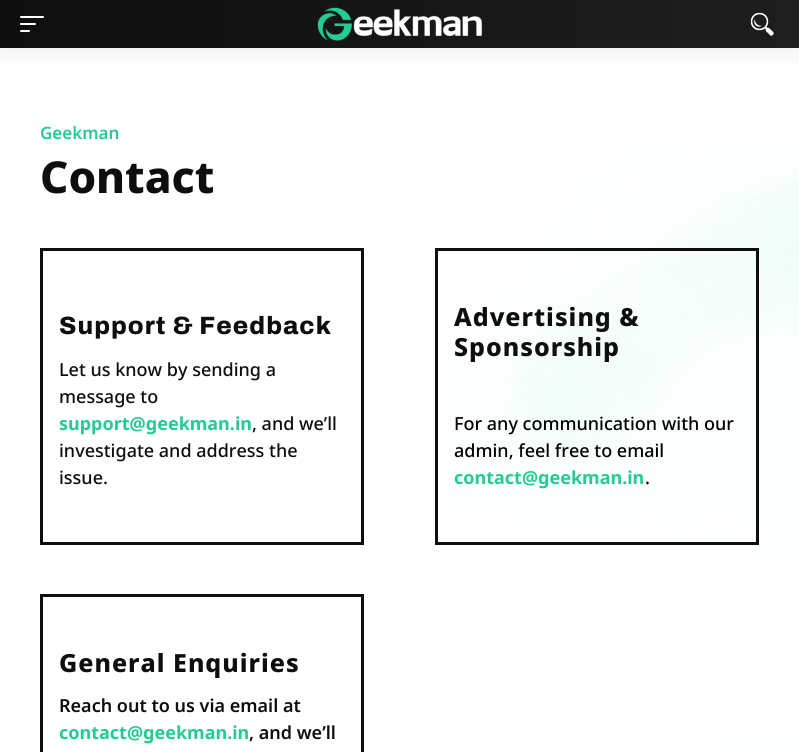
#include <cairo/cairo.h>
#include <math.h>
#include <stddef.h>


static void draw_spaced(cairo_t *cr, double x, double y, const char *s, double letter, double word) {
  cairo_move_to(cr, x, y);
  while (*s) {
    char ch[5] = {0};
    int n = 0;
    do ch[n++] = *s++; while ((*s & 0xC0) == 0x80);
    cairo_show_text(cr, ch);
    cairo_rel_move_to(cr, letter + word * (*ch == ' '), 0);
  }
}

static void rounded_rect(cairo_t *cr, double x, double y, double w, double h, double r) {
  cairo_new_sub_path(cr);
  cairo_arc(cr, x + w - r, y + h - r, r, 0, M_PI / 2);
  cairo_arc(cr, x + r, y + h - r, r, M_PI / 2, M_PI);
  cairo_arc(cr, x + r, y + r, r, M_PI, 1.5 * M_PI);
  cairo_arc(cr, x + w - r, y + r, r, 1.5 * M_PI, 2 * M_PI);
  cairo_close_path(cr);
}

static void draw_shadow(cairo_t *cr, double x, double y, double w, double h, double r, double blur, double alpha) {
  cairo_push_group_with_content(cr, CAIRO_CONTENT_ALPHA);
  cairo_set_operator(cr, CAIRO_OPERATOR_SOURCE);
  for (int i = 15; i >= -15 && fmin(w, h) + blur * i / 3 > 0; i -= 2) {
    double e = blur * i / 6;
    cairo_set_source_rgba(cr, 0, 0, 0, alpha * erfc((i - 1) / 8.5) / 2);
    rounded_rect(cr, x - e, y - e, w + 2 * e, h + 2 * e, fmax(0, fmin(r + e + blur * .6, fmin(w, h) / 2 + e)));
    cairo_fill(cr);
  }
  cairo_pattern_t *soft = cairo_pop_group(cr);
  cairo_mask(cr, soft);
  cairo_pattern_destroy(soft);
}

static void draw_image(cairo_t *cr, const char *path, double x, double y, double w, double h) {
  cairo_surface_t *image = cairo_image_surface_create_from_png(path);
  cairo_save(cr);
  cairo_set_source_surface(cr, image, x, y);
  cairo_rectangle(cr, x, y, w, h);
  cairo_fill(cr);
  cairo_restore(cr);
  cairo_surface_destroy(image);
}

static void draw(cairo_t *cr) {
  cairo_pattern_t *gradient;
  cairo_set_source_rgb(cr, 1, 1, 1);
  cairo_paint(cr);
  cairo_set_source_rgb(cr, 0, 0, 0);
  draw_shadow(cr, 0, 4, 799, 48, 0, 15, 0.07);
  gradient = cairo_pattern_create_linear(0, 24, 799, 24);
  cairo_pattern_add_color_stop_rgba(gradient, 0, 14 / 255.0, 14 / 255.0, 14 / 255.0, 1);
  cairo_pattern_add_color_stop_rgba(gradient, 1, 30 / 255.0, 30 / 255.0, 30 / 255.0, 1);
  cairo_set_source(cr, gradient);
  cairo_pattern_destroy(gradient);
  cairo_rectangle(cr, 0, 0, 799, 48);
  cairo_fill(cr);
  cairo_set_source_rgb(cr, 1, 1, 1);
  rounded_rect(cr, 20, 16, 24, 2, 1);
  cairo_fill(cr);
  rounded_rect(cr, 20, 23, 16, 2, 1);
  cairo_fill(cr);
  rounded_rect(cr, 20, 30, 10, 2, 1);
  cairo_fill(cr);
  draw_image(cr, "images/1.png", 317, 7, 166, 34);
  draw_image(cr, "images/2.png", 750, 12, 24, 24);
  draw_image(cr, "images/3.png", 448, 144, 351, 608);
  cairo_rectangle(cr, 41.5, 249.5, 321, 294);
  cairo_set_source_rgb(cr, 14 / 255.0, 14 / 255.0, 14 / 255.0);
  cairo_set_line_width(cr, 3);
  cairo_stroke(cr);
  cairo_rectangle(cr, 436.5, 249.5, 321, 294);
  cairo_stroke(cr);
  cairo_rectangle(cr, 41.5, 595.5, 321, 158);
  cairo_stroke(cr);
  cairo_select_font_face(cr, "Noto Sans SemiBold", CAIRO_FONT_SLANT_NORMAL, CAIRO_FONT_WEIGHT_NORMAL);
  cairo_set_font_size(cr, 17);
  cairo_set_source_rgb(cr, 36 / 255.0, 204 / 255.0, 144 / 255.0);
  cairo_move_to(cr, 40, 139);
  cairo_show_text(cr, "Geekman");
  cairo_select_font_face(cr, "Noto Sans ExtraBold", CAIRO_FONT_SLANT_NORMAL, CAIRO_FONT_WEIGHT_NORMAL);
  cairo_set_font_size(cr, 44);
  cairo_set_source_rgb(cr, 14 / 255.0, 14 / 255.0, 14 / 255.0);
  cairo_move_to(cr, 40, 193);
  cairo_show_text(cr, "Contact");
  cairo_select_font_face(cr, "Archivo ExtraBold", CAIRO_FONT_SLANT_NORMAL, CAIRO_FONT_WEIGHT_NORMAL);
  cairo_set_font_size(cr, 25);
  draw_spaced(cr, 59, 334, "Support & Feedback", 1, 0);
  cairo_select_font_face(cr, "Noto Sans Medium", CAIRO_FONT_SLANT_NORMAL, CAIRO_FONT_WEIGHT_NORMAL);
  cairo_set_font_size(cr, 18);
  cairo_move_to(cr, 59, 376);
  cairo_show_text(cr, "Let us know by sending a");
  cairo_move_to(cr, 59, 403);
  cairo_show_text(cr, "message to");
  cairo_select_font_face(cr, "Noto Sans", CAIRO_FONT_SLANT_NORMAL, CAIRO_FONT_WEIGHT_BOLD);
  cairo_set_source_rgb(cr, 36 / 255.0, 204 / 255.0, 144 / 255.0);
  cairo_move_to(cr, 59, 430);
  cairo_show_text(cr, "support@geekman.in");
  cairo_select_font_face(cr, "Noto Sans Medium", CAIRO_FONT_SLANT_NORMAL, CAIRO_FONT_WEIGHT_NORMAL);
  cairo_set_source_rgb(cr, 14 / 255.0, 14 / 255.0, 14 / 255.0);
  cairo_move_to(cr, 252, 430);
  cairo_show_text(cr, ", and we’ll");
  cairo_move_to(cr, 59, 457);
  cairo_show_text(cr, "investigate and address the");
  cairo_move_to(cr, 59, 484);
  cairo_show_text(cr, "issue.");
  cairo_select_font_face(cr, "Noto Sans ExtraBold", CAIRO_FONT_SLANT_NORMAL, CAIRO_FONT_WEIGHT_NORMAL);
  cairo_set_font_size(cr, 25);
  draw_spaced(cr, 454, 326, "Advertising &", 1, 0);
  draw_spaced(cr, 454, 356, "Sponsorship", 1, 0);
  cairo_select_font_face(cr, "Noto Sans Medium", CAIRO_FONT_SLANT_NORMAL, CAIRO_FONT_WEIGHT_NORMAL);
  cairo_set_font_size(cr, 18);
  cairo_set_source_rgb(cr, 0, 0, 0);
  cairo_move_to(cr, 454, 430);
  cairo_show_text(cr, "For any communication with our");
  cairo_move_to(cr, 454, 457);
  cairo_show_text(cr, "admin, feel free to email");
  cairo_select_font_face(cr, "Noto Sans", CAIRO_FONT_SLANT_NORMAL, CAIRO_FONT_WEIGHT_BOLD);
  cairo_set_source_rgb(cr, 36 / 255.0, 204 / 255.0, 144 / 255.0);
  cairo_move_to(cr, 454, 484);
  cairo_show_text(cr, "contact@geekman.in");
  cairo_select_font_face(cr, "Noto Sans Medium", CAIRO_FONT_SLANT_NORMAL, CAIRO_FONT_WEIGHT_NORMAL);
  cairo_set_source_rgb(cr, 0, 0, 0);
  cairo_move_to(cr, 645, 484);
  cairo_show_text(cr, ".");
  cairo_select_font_face(cr, "Noto Sans ExtraBold", CAIRO_FONT_SLANT_NORMAL, CAIRO_FONT_WEIGHT_NORMAL);
  cairo_set_font_size(cr, 25);
  cairo_set_source_rgb(cr, 14 / 255.0, 14 / 255.0, 14 / 255.0);
  draw_spaced(cr, 59, 672, "General Enquiries", 1, 0);
  cairo_select_font_face(cr, "Noto Sans SemiBold", CAIRO_FONT_SLANT_NORMAL, CAIRO_FONT_WEIGHT_NORMAL);
  cairo_set_font_size(cr, 18);
  cairo_move_to(cr, 59, 712);
  cairo_show_text(cr, "Reach out to us via email at");
  cairo_select_font_face(cr, "Noto Sans", CAIRO_FONT_SLANT_NORMAL, CAIRO_FONT_WEIGHT_BOLD);
  cairo_set_source_rgb(cr, 36 / 255.0, 204 / 255.0, 144 / 255.0);
  cairo_move_to(cr, 59, 739);
  cairo_show_text(cr, "contact@geekman.in");
  cairo_select_font_face(cr, "Noto Sans SemiBold", CAIRO_FONT_SLANT_NORMAL, CAIRO_FONT_WEIGHT_NORMAL);
  cairo_set_source_rgb(cr, 14 / 255.0, 14 / 255.0, 14 / 255.0);
  cairo_move_to(cr, 249, 739);
  cairo_show_text(cr, ", and we’ll");
}

int main(void) {
  cairo_surface_t *surface = cairo_image_surface_create(CAIRO_FORMAT_RGB24, 799, 752);
  cairo_t *cr = cairo_create(surface);
  cairo_font_options_t *options = cairo_font_options_create();
  cairo_font_options_set_hint_metrics(options, CAIRO_HINT_METRICS_OFF);
  cairo_font_options_set_hint_style(options, CAIRO_HINT_STYLE_NONE);
  cairo_set_font_options(cr, options);
  cairo_set_miter_limit(cr, 4);
  draw(cr);
  cairo_surface_write_to_png(surface, "out.png");
  cairo_font_options_destroy(options);
  cairo_destroy(cr);
  cairo_surface_destroy(surface);
  return 0;
}
